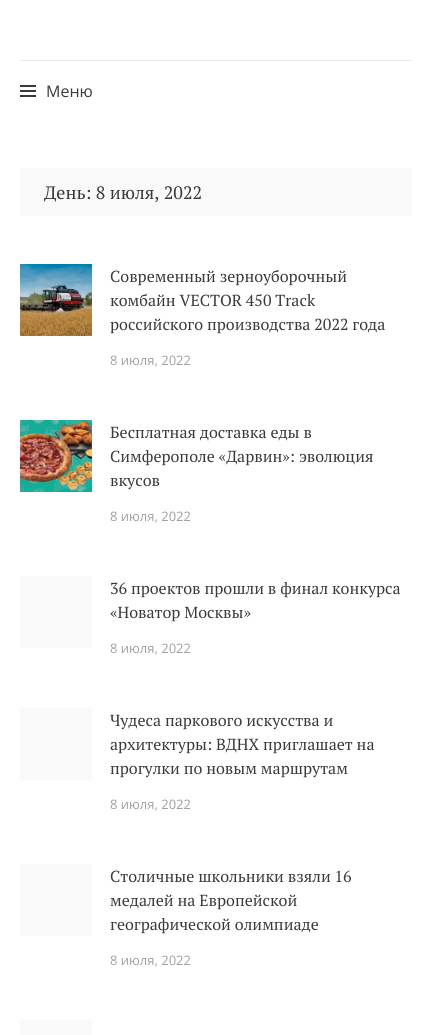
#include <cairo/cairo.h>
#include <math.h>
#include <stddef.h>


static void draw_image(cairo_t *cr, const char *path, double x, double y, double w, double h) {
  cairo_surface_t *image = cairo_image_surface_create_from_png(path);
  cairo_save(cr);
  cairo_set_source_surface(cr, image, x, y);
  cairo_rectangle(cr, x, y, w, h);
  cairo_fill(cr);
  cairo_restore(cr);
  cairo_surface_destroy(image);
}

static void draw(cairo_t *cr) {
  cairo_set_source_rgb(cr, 1, 1, 1);
  cairo_paint(cr);
  cairo_set_source_rgb(cr, 235 / 255.0, 235 / 255.0, 235 / 255.0);
  cairo_rectangle(cr, 20, 60, 392, 1);
  cairo_fill(cr);
  draw_image(cr, "images/1.png", 20, 85, 16, 12);
  cairo_set_source_rgb(cr, 249 / 255.0, 249 / 255.0, 249 / 255.0);
  cairo_rectangle(cr, 20, 168, 392, 48);
  cairo_fill(cr);
  draw_image(cr, "images/2.png", 20, 264, 72, 72);
  draw_image(cr, "images/3.png", 20, 420, 72, 72);
  cairo_rectangle(cr, 20, 576, 72, 72);
  cairo_fill(cr);
  cairo_rectangle(cr, 20, 708, 72, 72);
  cairo_fill(cr);
  cairo_rectangle(cr, 20, 864, 72, 72);
  cairo_fill(cr);
  cairo_rectangle(cr, 20, 1020, 72, 15);
  cairo_fill(cr);
  cairo_select_font_face(cr, "Open Sans", CAIRO_FONT_SLANT_NORMAL, CAIRO_FONT_WEIGHT_NORMAL);
  cairo_set_font_size(cr, 16);
  cairo_set_source_rgb(cr, 58 / 255.0, 58 / 255.0, 58 / 255.0);
  cairo_move_to(cr, 46, 97);
  cairo_show_text(cr, "Меню");
  cairo_select_font_face(cr, "PT Serif", CAIRO_FONT_SLANT_NORMAL, CAIRO_FONT_WEIGHT_NORMAL);
  cairo_set_font_size(cr, 18);
  cairo_move_to(cr, 44, 199);
  cairo_show_text(cr, "День: 8 июля, 2022");
  cairo_set_font_size(cr, 16);
  cairo_move_to(cr, 110, 282);
  cairo_show_text(cr, "Современный зерноуборочный");
  cairo_move_to(cr, 110, 306);
  cairo_show_text(cr, "комбайн VECTOR 450 Track");
  cairo_move_to(cr, 110, 330);
  cairo_show_text(cr, "российского производства 2022 года");
  cairo_select_font_face(cr, "Open Sans", CAIRO_FONT_SLANT_NORMAL, CAIRO_FONT_WEIGHT_NORMAL);
  cairo_set_font_size(cr, 13);
  cairo_set_source_rgb(cr, 160 / 255.0, 160 / 255.0, 160 / 255.0);
  cairo_move_to(cr, 110, 365);
  cairo_show_text(cr, "8 июля, 2022");
  cairo_select_font_face(cr, "PT Serif", CAIRO_FONT_SLANT_NORMAL, CAIRO_FONT_WEIGHT_NORMAL);
  cairo_set_font_size(cr, 16);
  cairo_set_source_rgb(cr, 58 / 255.0, 58 / 255.0, 58 / 255.0);
  cairo_move_to(cr, 110, 438);
  cairo_show_text(cr, "Бесплатная доставка еды в");
  cairo_move_to(cr, 110, 462);
  cairo_show_text(cr, "Симферополе «Дарвин»: эволюция");
  cairo_move_to(cr, 110, 486);
  cairo_show_text(cr, "вкусов");
  cairo_select_font_face(cr, "Open Sans", CAIRO_FONT_SLANT_NORMAL, CAIRO_FONT_WEIGHT_NORMAL);
  cairo_set_font_size(cr, 13);
  cairo_set_source_rgb(cr, 160 / 255.0, 160 / 255.0, 160 / 255.0);
  cairo_move_to(cr, 110, 521);
  cairo_show_text(cr, "8 июля, 2022");
  cairo_select_font_face(cr, "PT Serif", CAIRO_FONT_SLANT_NORMAL, CAIRO_FONT_WEIGHT_NORMAL);
  cairo_set_font_size(cr, 16);
  cairo_set_source_rgb(cr, 58 / 255.0, 58 / 255.0, 58 / 255.0);
  cairo_move_to(cr, 110, 594);
  cairo_show_text(cr, "36 проектов прошли в финал конкурса");
  cairo_move_to(cr, 110, 618);
  cairo_show_text(cr, "«Новатор Москвы»");
  cairo_select_font_face(cr, "Open Sans", CAIRO_FONT_SLANT_NORMAL, CAIRO_FONT_WEIGHT_NORMAL);
  cairo_set_font_size(cr, 13);
  cairo_set_source_rgb(cr, 160 / 255.0, 160 / 255.0, 160 / 255.0);
  cairo_move_to(cr, 110, 653);
  cairo_show_text(cr, "8 июля, 2022");
  cairo_select_font_face(cr, "PT Serif", CAIRO_FONT_SLANT_NORMAL, CAIRO_FONT_WEIGHT_NORMAL);
  cairo_set_font_size(cr, 16);
  cairo_set_source_rgb(cr, 58 / 255.0, 58 / 255.0, 58 / 255.0);
  cairo_move_to(cr, 110, 726);
  cairo_show_text(cr, "Чудеса паркового искусства и");
  cairo_move_to(cr, 110, 750);
  cairo_show_text(cr, "архитектуры: ВДНХ приглашает на");
  cairo_move_to(cr, 110, 774);
  cairo_show_text(cr, "прогулки по новым маршрутам");
  cairo_select_font_face(cr, "Open Sans", CAIRO_FONT_SLANT_NORMAL, CAIRO_FONT_WEIGHT_NORMAL);
  cairo_set_font_size(cr, 13);
  cairo_set_source_rgb(cr, 160 / 255.0, 160 / 255.0, 160 / 255.0);
  cairo_move_to(cr, 110, 809);
  cairo_show_text(cr, "8 июля, 2022");
  cairo_select_font_face(cr, "PT Serif", CAIRO_FONT_SLANT_NORMAL, CAIRO_FONT_WEIGHT_NORMAL);
  cairo_set_font_size(cr, 16);
  cairo_set_source_rgb(cr, 58 / 255.0, 58 / 255.0, 58 / 255.0);
  cairo_move_to(cr, 110, 882);
  cairo_show_text(cr, "Столичные школьники взяли 16");
  cairo_move_to(cr, 110, 906);
  cairo_show_text(cr, "медалей на Европейской");
  cairo_move_to(cr, 110, 930);
  cairo_show_text(cr, "географической олимпиаде");
  cairo_select_font_face(cr, "Open Sans", CAIRO_FONT_SLANT_NORMAL, CAIRO_FONT_WEIGHT_NORMAL);
  cairo_set_font_size(cr, 13);
  cairo_set_source_rgb(cr, 160 / 255.0, 160 / 255.0, 160 / 255.0);
  cairo_move_to(cr, 110, 965);
  cairo_show_text(cr, "8 июля, 2022");
}

int main(void) {
  cairo_surface_t *surface = cairo_image_surface_create(CAIRO_FORMAT_RGB24, 432, 1035);
  cairo_t *cr = cairo_create(surface);
  cairo_font_options_t *options = cairo_font_options_create();
  cairo_font_options_set_hint_metrics(options, CAIRO_HINT_METRICS_OFF);
  cairo_font_options_set_hint_style(options, CAIRO_HINT_STYLE_NONE);
  cairo_set_font_options(cr, options);
  cairo_set_miter_limit(cr, 4);
  draw(cr);
  cairo_surface_write_to_png(surface, "out.png");
  cairo_font_options_destroy(options);
  cairo_destroy(cr);
  cairo_surface_destroy(surface);
  return 0;
}
